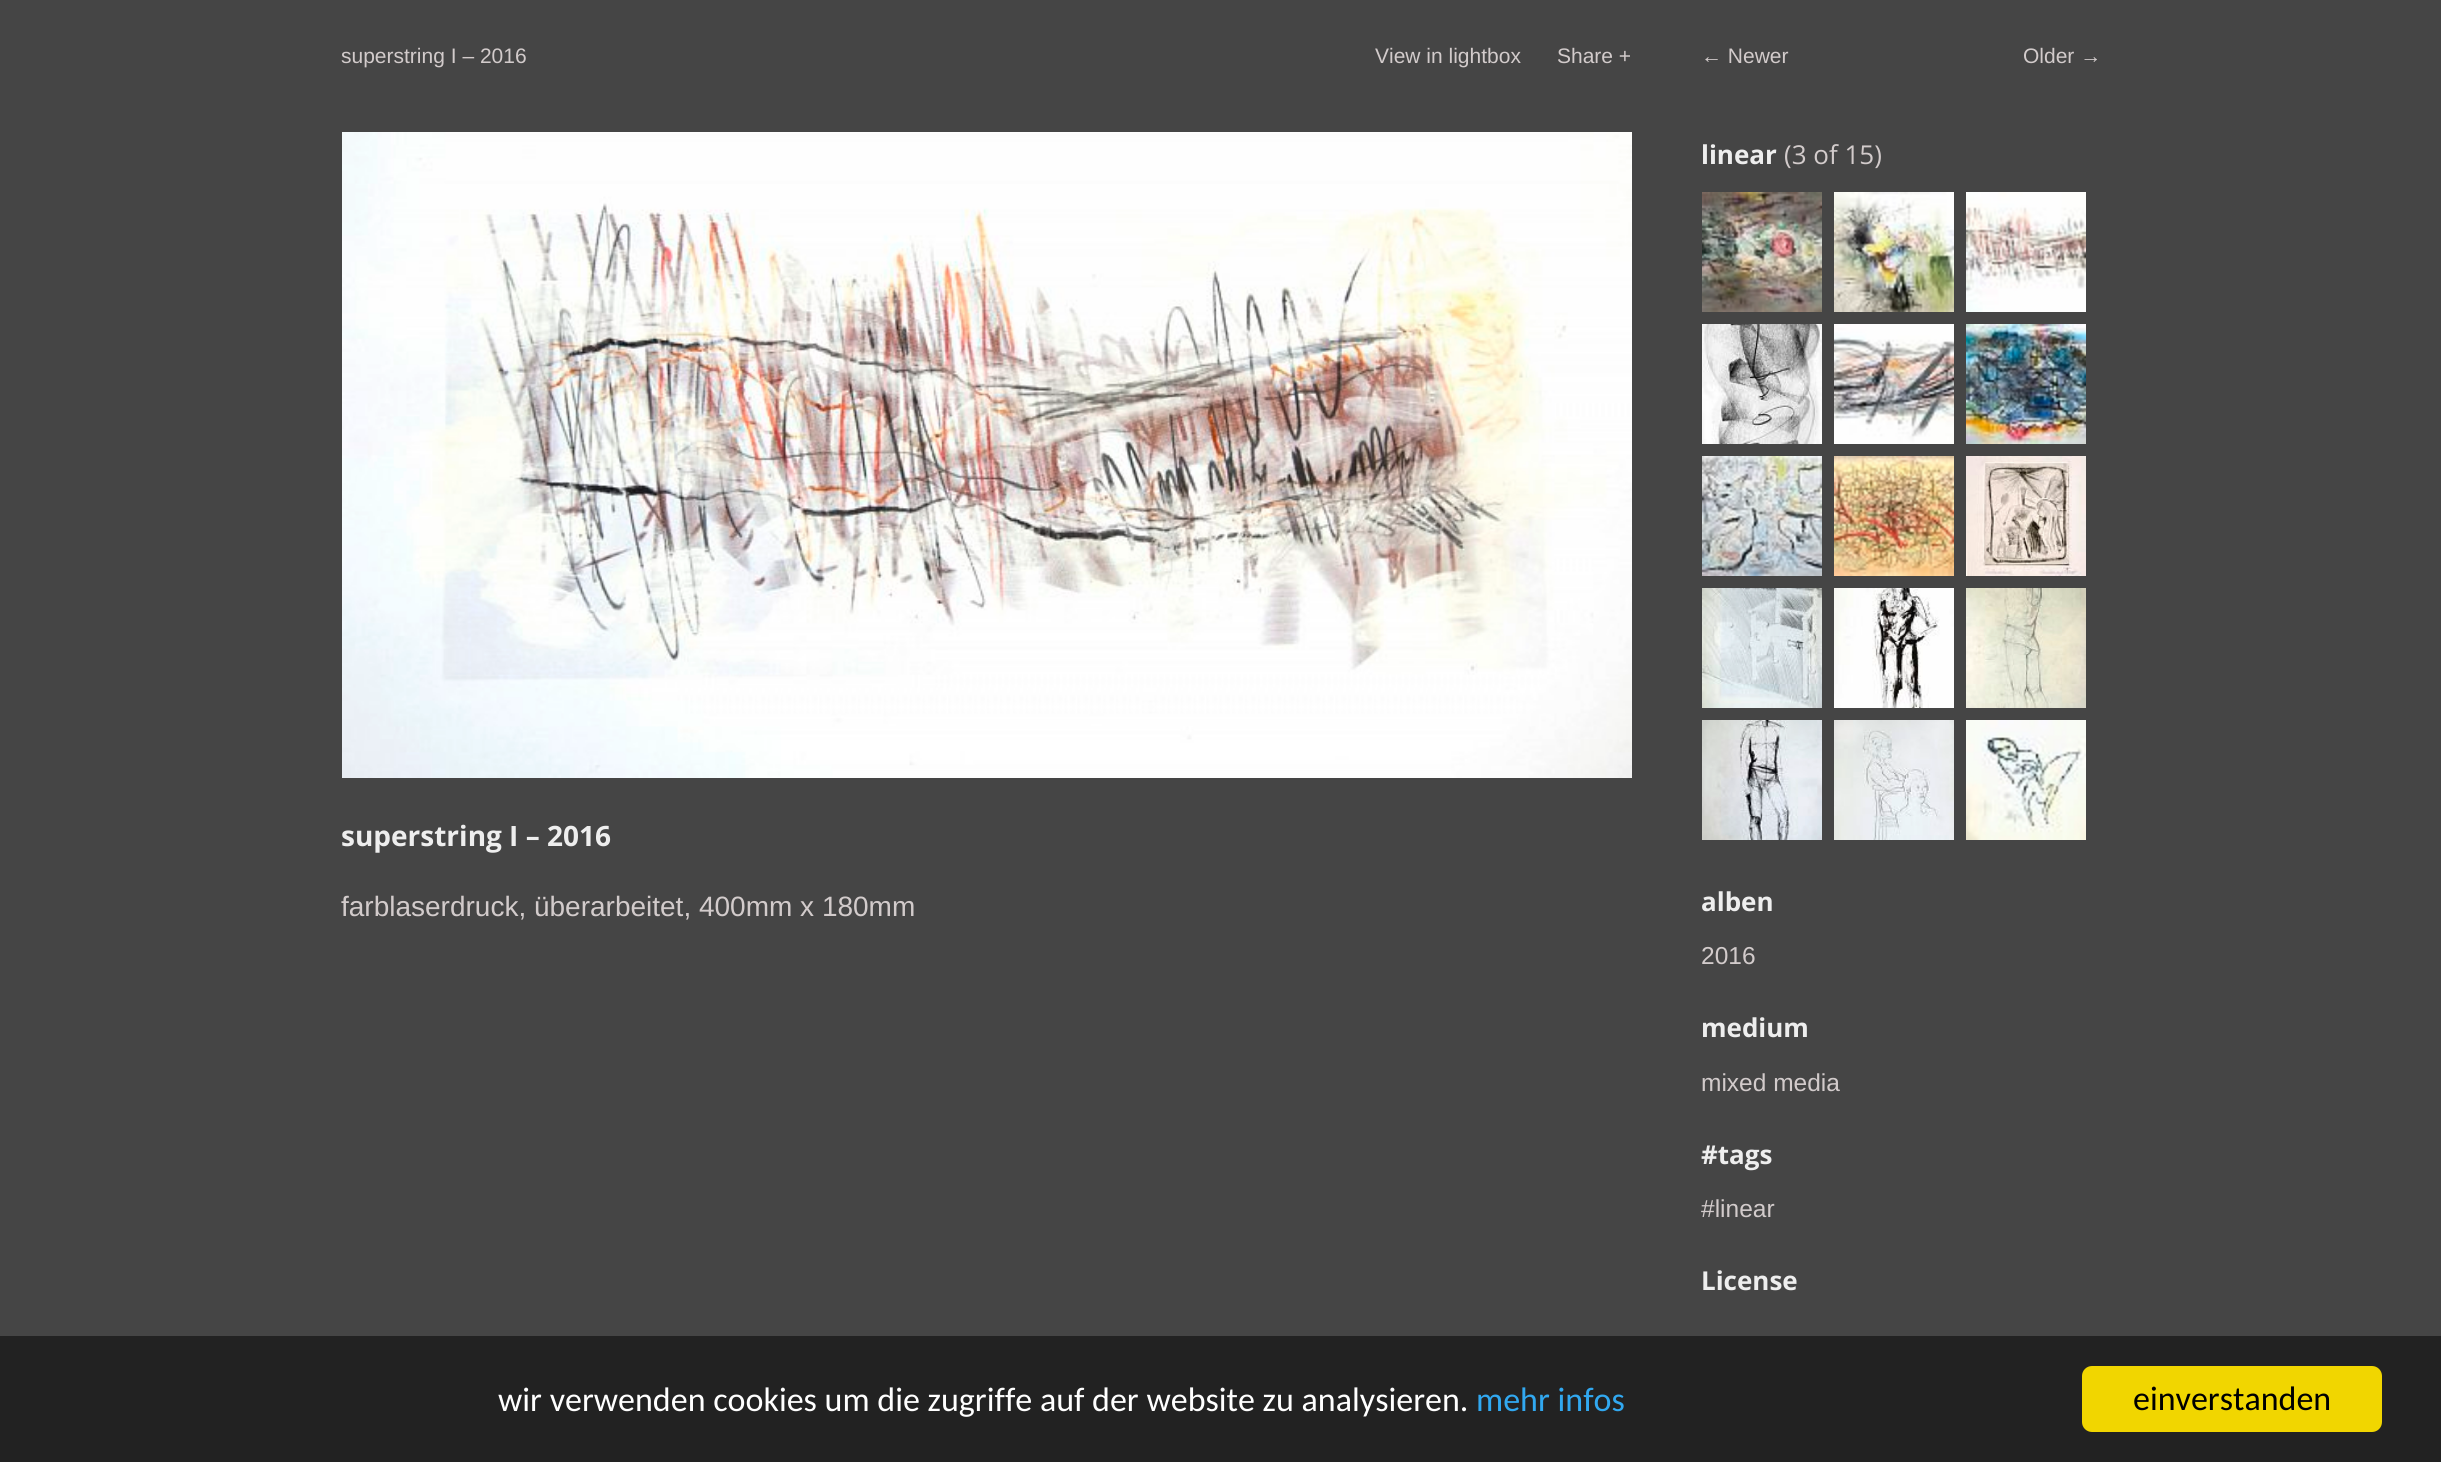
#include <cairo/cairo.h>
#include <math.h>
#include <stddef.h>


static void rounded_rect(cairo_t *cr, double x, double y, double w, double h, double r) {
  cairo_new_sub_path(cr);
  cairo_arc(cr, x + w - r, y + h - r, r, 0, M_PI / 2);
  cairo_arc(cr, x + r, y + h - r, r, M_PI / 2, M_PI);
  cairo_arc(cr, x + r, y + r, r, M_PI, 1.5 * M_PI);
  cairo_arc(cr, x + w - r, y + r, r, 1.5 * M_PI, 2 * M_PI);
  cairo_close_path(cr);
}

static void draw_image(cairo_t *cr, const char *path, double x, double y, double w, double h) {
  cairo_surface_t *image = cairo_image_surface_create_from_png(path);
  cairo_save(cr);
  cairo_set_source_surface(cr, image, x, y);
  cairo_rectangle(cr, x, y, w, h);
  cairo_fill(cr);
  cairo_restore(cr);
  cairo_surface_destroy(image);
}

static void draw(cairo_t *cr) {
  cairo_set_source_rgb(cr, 69 / 255.0, 69 / 255.0, 69 / 255.0);
  cairo_paint(cr);
  draw_image(cr, "images/1.png", 342, 132, 1290, 646);
  draw_image(cr, "images/2.png", 1702, 192, 120, 120);
  draw_image(cr, "images/3.png", 1834, 192, 120, 120);
  draw_image(cr, "images/4.png", 1966, 192, 120, 120);
  draw_image(cr, "images/5.png", 1702, 324, 120, 120);
  draw_image(cr, "images/6.png", 1834, 324, 120, 120);
  draw_image(cr, "images/7.png", 1966, 324, 120, 120);
  draw_image(cr, "images/8.png", 1702, 456, 120, 120);
  draw_image(cr, "images/9.png", 1834, 456, 120, 120);
  draw_image(cr, "images/10.png", 1966, 456, 120, 120);
  draw_image(cr, "images/11.png", 1702, 588, 120, 120);
  draw_image(cr, "images/12.png", 1834, 588, 120, 120);
  draw_image(cr, "images/13.png", 1966, 588, 120, 120);
  draw_image(cr, "images/14.png", 1702, 720, 120, 120);
  draw_image(cr, "images/15.png", 1834, 720, 120, 120);
  draw_image(cr, "images/16.png", 1966, 720, 120, 120);
  cairo_set_source_rgb(cr, 34 / 255.0, 34 / 255.0, 34 / 255.0);
  cairo_rectangle(cr, 0, 1336, 2441, 126);
  cairo_fill(cr);
  cairo_set_source_rgb(cr, 241 / 255.0, 214 / 255.0, 0);
  rounded_rect(cr, 2082, 1366, 300, 66, 10);
  cairo_fill(cr);
  cairo_select_font_face(cr, "Liberation Sans", CAIRO_FONT_SLANT_NORMAL, CAIRO_FONT_WEIGHT_NORMAL);
  cairo_set_font_size(cr, 21);
  cairo_set_source_rgb(cr, 210 / 255.0, 203 / 255.0, 203 / 255.0);
  cairo_move_to(cr, 341, 63);
  cairo_show_text(cr, "superstring I – 2016");
  cairo_move_to(cr, 1375, 63);
  cairo_show_text(cr, "View in lightbox");
  cairo_move_to(cr, 1557, 63);
  cairo_show_text(cr, "Share +");
  cairo_select_font_face(cr, "Open Sans", CAIRO_FONT_SLANT_NORMAL, CAIRO_FONT_WEIGHT_BOLD);
  cairo_set_font_size(cr, 28);
  cairo_set_source_rgb(cr, 238 / 255.0, 238 / 255.0, 238 / 255.0);
  cairo_move_to(cr, 341, 846);
  cairo_show_text(cr, "superstring I – 2016");
  cairo_select_font_face(cr, "Liberation Sans", CAIRO_FONT_SLANT_NORMAL, CAIRO_FONT_WEIGHT_NORMAL);
  cairo_set_source_rgb(cr, 210 / 255.0, 203 / 255.0, 203 / 255.0);
  cairo_move_to(cr, 341, 916);
  cairo_show_text(cr, "farblaserdruck, überarbeitet, 400mm x 180mm");
  cairo_set_font_size(cr, 21);
  cairo_move_to(cr, 1701, 63);
  cairo_show_text(cr, "← Newer");
  cairo_move_to(cr, 2023, 63);
  cairo_show_text(cr, "Older →");
  cairo_select_font_face(cr, "Open Sans", CAIRO_FONT_SLANT_NORMAL, CAIRO_FONT_WEIGHT_BOLD);
  cairo_set_font_size(cr, 26);
  cairo_set_source_rgb(cr, 238 / 255.0, 238 / 255.0, 238 / 255.0);
  cairo_move_to(cr, 1701, 164);
  cairo_show_text(cr, "linear");
  cairo_select_font_face(cr, "Open Sans", CAIRO_FONT_SLANT_NORMAL, CAIRO_FONT_WEIGHT_NORMAL);
  cairo_set_source_rgb(cr, 210 / 255.0, 203 / 255.0, 203 / 255.0);
  cairo_move_to(cr, 1784, 164);
  cairo_show_text(cr, "(3 of 15)");
  cairo_select_font_face(cr, "Open Sans", CAIRO_FONT_SLANT_NORMAL, CAIRO_FONT_WEIGHT_BOLD);
  cairo_set_source_rgb(cr, 238 / 255.0, 238 / 255.0, 238 / 255.0);
  cairo_move_to(cr, 1701, 911);
  cairo_show_text(cr, "alben");
  cairo_select_font_face(cr, "Liberation Sans", CAIRO_FONT_SLANT_NORMAL, CAIRO_FONT_WEIGHT_NORMAL);
  cairo_set_font_size(cr, 24.5);
  cairo_set_source_rgb(cr, 210 / 255.0, 203 / 255.0, 203 / 255.0);
  cairo_move_to(cr, 1701, 964);
  cairo_show_text(cr, "2016");
  cairo_select_font_face(cr, "Open Sans", CAIRO_FONT_SLANT_NORMAL, CAIRO_FONT_WEIGHT_BOLD);
  cairo_set_font_size(cr, 26);
  cairo_set_source_rgb(cr, 238 / 255.0, 238 / 255.0, 238 / 255.0);
  cairo_move_to(cr, 1701, 1037);
  cairo_show_text(cr, "medium");
  cairo_select_font_face(cr, "Liberation Sans", CAIRO_FONT_SLANT_NORMAL, CAIRO_FONT_WEIGHT_NORMAL);
  cairo_set_font_size(cr, 24.5);
  cairo_set_source_rgb(cr, 210 / 255.0, 203 / 255.0, 203 / 255.0);
  cairo_move_to(cr, 1701, 1091);
  cairo_show_text(cr, "mixed media");
  cairo_select_font_face(cr, "Open Sans", CAIRO_FONT_SLANT_NORMAL, CAIRO_FONT_WEIGHT_BOLD);
  cairo_set_font_size(cr, 26);
  cairo_set_source_rgb(cr, 238 / 255.0, 238 / 255.0, 238 / 255.0);
  cairo_move_to(cr, 1701, 1164);
  cairo_show_text(cr, "#tags");
  cairo_select_font_face(cr, "Liberation Sans", CAIRO_FONT_SLANT_NORMAL, CAIRO_FONT_WEIGHT_NORMAL);
  cairo_set_font_size(cr, 24.5);
  cairo_set_source_rgb(cr, 210 / 255.0, 203 / 255.0, 203 / 255.0);
  cairo_move_to(cr, 1701, 1217);
  cairo_show_text(cr, "#linear");
  cairo_select_font_face(cr, "Open Sans", CAIRO_FONT_SLANT_NORMAL, CAIRO_FONT_WEIGHT_BOLD);
  cairo_set_font_size(cr, 26);
  cairo_set_source_rgb(cr, 238 / 255.0, 238 / 255.0, 238 / 255.0);
  cairo_move_to(cr, 1701, 1290);
  cairo_show_text(cr, "License");
  cairo_select_font_face(cr, "Carlito", CAIRO_FONT_SLANT_NORMAL, CAIRO_FONT_WEIGHT_NORMAL);
  cairo_set_font_size(cr, 34);
  cairo_set_source_rgb(cr, 1, 1, 1);
  cairo_move_to(cr, 498, 1411);
  cairo_show_text(cr, "wir verwenden cookies um die zugriffe auf der website zu analysieren.");
  cairo_set_source_rgb(cr, 49 / 255.0, 168 / 255.0, 240 / 255.0);
  cairo_move_to(cr, 1476, 1411);
  cairo_show_text(cr, "mehr infos");
  cairo_set_source_rgb(cr, 0, 0, 0);
  cairo_move_to(cr, 2133, 1410);
  cairo_show_text(cr, "einverstanden");
}

int main(void) {
  cairo_surface_t *surface = cairo_image_surface_create(CAIRO_FORMAT_RGB24, 2441, 1462);
  cairo_t *cr = cairo_create(surface);
  cairo_font_options_t *options = cairo_font_options_create();
  cairo_font_options_set_hint_metrics(options, CAIRO_HINT_METRICS_OFF);
  cairo_font_options_set_hint_style(options, CAIRO_HINT_STYLE_NONE);
  cairo_set_font_options(cr, options);
  cairo_set_miter_limit(cr, 4);
  draw(cr);
  cairo_surface_write_to_png(surface, "out.png");
  cairo_font_options_destroy(options);
  cairo_destroy(cr);
  cairo_surface_destroy(surface);
  return 0;
}
